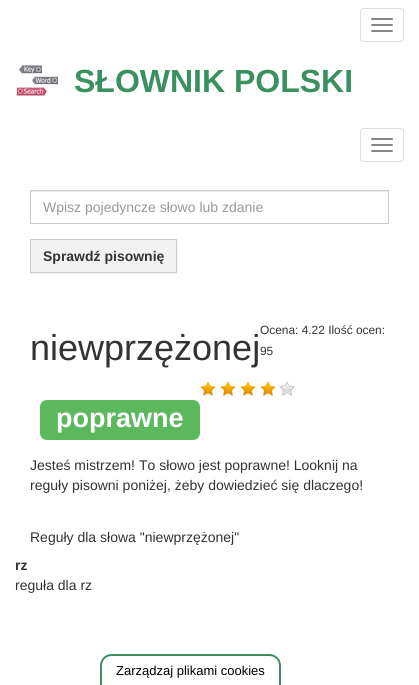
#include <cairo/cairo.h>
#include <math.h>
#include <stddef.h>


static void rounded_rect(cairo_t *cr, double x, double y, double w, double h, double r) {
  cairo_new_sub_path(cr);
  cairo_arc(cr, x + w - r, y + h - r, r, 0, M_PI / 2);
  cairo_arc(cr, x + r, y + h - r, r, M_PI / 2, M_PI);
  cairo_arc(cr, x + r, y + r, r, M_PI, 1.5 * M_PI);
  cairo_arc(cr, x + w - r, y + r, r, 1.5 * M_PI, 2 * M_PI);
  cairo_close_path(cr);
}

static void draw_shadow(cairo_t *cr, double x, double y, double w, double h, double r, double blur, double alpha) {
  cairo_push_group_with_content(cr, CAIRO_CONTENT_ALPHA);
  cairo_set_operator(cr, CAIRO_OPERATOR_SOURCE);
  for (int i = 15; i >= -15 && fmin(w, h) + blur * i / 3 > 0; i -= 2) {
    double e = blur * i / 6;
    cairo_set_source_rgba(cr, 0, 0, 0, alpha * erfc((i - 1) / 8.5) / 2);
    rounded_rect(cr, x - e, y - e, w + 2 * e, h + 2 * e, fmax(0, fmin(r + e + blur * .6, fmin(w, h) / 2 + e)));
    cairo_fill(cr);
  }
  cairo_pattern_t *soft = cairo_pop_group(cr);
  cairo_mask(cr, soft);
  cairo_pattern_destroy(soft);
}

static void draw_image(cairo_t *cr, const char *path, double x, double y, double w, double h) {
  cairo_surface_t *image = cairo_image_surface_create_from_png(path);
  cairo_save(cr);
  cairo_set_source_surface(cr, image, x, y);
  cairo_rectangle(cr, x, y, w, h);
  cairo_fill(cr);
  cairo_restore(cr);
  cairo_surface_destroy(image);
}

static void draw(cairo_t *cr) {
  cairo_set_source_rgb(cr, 1, 1, 1);
  cairo_paint(cr);
  rounded_rect(cr, 360.5, 8.5, 43, 33, 3.5);
  cairo_set_source_rgb(cr, 221 / 255.0, 221 / 255.0, 221 / 255.0);
  cairo_set_line_width(cr, 1);
  cairo_stroke(cr);
  cairo_set_source_rgb(cr, 136 / 255.0, 136 / 255.0, 136 / 255.0);
  rounded_rect(cr, 371, 18, 22, 2, 1);
  cairo_fill(cr);
  rounded_rect(cr, 371, 24, 22, 2, 1);
  cairo_fill(cr);
  rounded_rect(cr, 371, 30, 22, 2, 1);
  cairo_fill(cr);
  draw_image(cr, "images/1.png", 15, 65, 44, 31);
  rounded_rect(cr, 360.5, 128.5, 43, 33, 3.5);
  cairo_set_source_rgb(cr, 221 / 255.0, 221 / 255.0, 221 / 255.0);
  cairo_stroke(cr);
  cairo_set_source_rgb(cr, 136 / 255.0, 136 / 255.0, 136 / 255.0);
  rounded_rect(cr, 371, 138, 22, 2, 1);
  cairo_fill(cr);
  rounded_rect(cr, 371, 144, 22, 2, 1);
  cairo_fill(cr);
  rounded_rect(cr, 371, 150, 22, 2, 1);
  cairo_fill(cr);
  cairo_set_source_rgb(cr, 236 / 255.0, 236 / 255.0, 236 / 255.0);
  cairo_rectangle(cr, 31, 191, 357, 1);
  cairo_fill(cr);
  cairo_rectangle(cr, 30.5, 190.5, 358, 33);
  cairo_set_source_rgb(cr, 204 / 255.0, 204 / 255.0, 204 / 255.0);
  cairo_stroke(cr);
  cairo_set_source_rgb(cr, 0, 0, 0);
  draw_shadow(cr, 30, 240, 147, 34, 0, 0.5, 0.07);
  cairo_set_source_rgb(cr, 242 / 255.0, 242 / 255.0, 242 / 255.0);
  cairo_rectangle(cr, 31, 241, 145, 31);
  cairo_fill(cr);
  cairo_set_source_rgb(cr, 244 / 255.0, 244 / 255.0, 244 / 255.0);
  cairo_rectangle(cr, 31, 240, 145, 1);
  cairo_fill(cr);
  cairo_rectangle(cr, 30.5, 239.5, 146, 33);
  cairo_set_source_rgb(cr, 204 / 255.0, 204 / 255.0, 204 / 255.0);
  cairo_stroke(cr);
  cairo_set_source_rgb(cr, 92 / 255.0, 184 / 255.0, 92 / 255.0);
  rounded_rect(cr, 40, 400, 160, 40, 7);
  cairo_fill(cr);
  draw_image(cr, "images/2.png", 200, 381, 16, 15);
  draw_image(cr, "images/2.png", 220, 381, 16, 15);
  draw_image(cr, "images/2.png", 240, 381, 16, 15);
  draw_image(cr, "images/2.png", 260, 381, 16, 15);
  draw_image(cr, "images/3.png", 279, 381, 16, 15);
  cairo_set_source_rgb(cr, 63 / 255.0, 142 / 255.0, 97 / 255.0);
  cairo_set_fill_rule(cr, CAIRO_FILL_RULE_EVEN_ODD);
  cairo_new_path(cr);
  cairo_move_to(cr, 112, 654);
  cairo_line_to(cr, 269, 654);
  cairo_curve_to(cr, 276, 654, 281, 659, 281, 666);
  cairo_line_to(cr, 281, 685);
  cairo_line_to(cr, 100, 685);
  cairo_line_to(cr, 100, 666);
  cairo_curve_to(cr, 100, 659, 105, 654, 112, 654);
  cairo_close_path(cr);
  cairo_move_to(cr, 112, 656);
  cairo_line_to(cr, 269, 656);
  cairo_curve_to(cr, 275, 656, 279, 660, 279, 666);
  cairo_line_to(cr, 279, 685);
  cairo_line_to(cr, 102, 685);
  cairo_line_to(cr, 102, 666);
  cairo_curve_to(cr, 102, 660, 106, 656, 112, 656);
  cairo_close_path(cr);
  cairo_fill(cr);
  cairo_select_font_face(cr, "Liberation Sans", CAIRO_FONT_SLANT_NORMAL, CAIRO_FONT_WEIGHT_BOLD);
  cairo_set_font_size(cr, 32);
  cairo_set_source_rgb(cr, 58 / 255.0, 144 / 255.0, 95 / 255.0);
  cairo_move_to(cr, 74, 92);
  cairo_show_text(cr, "SŁOWNIK POLSKI");
  cairo_select_font_face(cr, "Liberation Sans", CAIRO_FONT_SLANT_NORMAL, CAIRO_FONT_WEIGHT_NORMAL);
  cairo_set_font_size(cr, 14);
  cairo_set_source_rgb(cr, 153 / 255.0, 153 / 255.0, 153 / 255.0);
  cairo_move_to(cr, 43, 212);
  cairo_show_text(cr, "Wpisz pojedyncze słowo lub zdanie");
  cairo_select_font_face(cr, "Liberation Sans", CAIRO_FONT_SLANT_NORMAL, CAIRO_FONT_WEIGHT_BOLD);
  cairo_set_source_rgb(cr, 51 / 255.0, 51 / 255.0, 51 / 255.0);
  cairo_move_to(cr, 43, 261);
  cairo_show_text(cr, "Sprawdź pisownię");
  cairo_select_font_face(cr, "Liberation Sans", CAIRO_FONT_SLANT_NORMAL, CAIRO_FONT_WEIGHT_NORMAL);
  cairo_set_font_size(cr, 36);
  cairo_move_to(cr, 30, 360);
  cairo_show_text(cr, "niewprzężonej");
  cairo_select_font_face(cr, "Liberation Sans", CAIRO_FONT_SLANT_NORMAL, CAIRO_FONT_WEIGHT_BOLD);
  cairo_set_font_size(cr, 27);
  cairo_set_source_rgb(cr, 1, 1, 1);
  cairo_move_to(cr, 56, 427);
  cairo_show_text(cr, "poprawne");
  cairo_select_font_face(cr, "Liberation Sans", CAIRO_FONT_SLANT_NORMAL, CAIRO_FONT_WEIGHT_NORMAL);
  cairo_set_font_size(cr, 11.9);
  cairo_set_source_rgb(cr, 51 / 255.0, 51 / 255.0, 51 / 255.0);
  cairo_move_to(cr, 260, 334);
  cairo_show_text(cr, "Ocena: 4.22 Ilość ocen:");
  cairo_move_to(cr, 260, 355);
  cairo_show_text(cr, "95");
  cairo_set_font_size(cr, 14);
  cairo_move_to(cr, 30, 470);
  cairo_show_text(cr, "Jesteś mistrzem! To słowo jest poprawne! Looknij na");
  cairo_move_to(cr, 30, 490);
  cairo_show_text(cr, "reguły pisowni poniżej, żeby dowiedzieć się dlaczego!");
  cairo_move_to(cr, 30, 542);
  cairo_show_text(cr, "Reguły dla słowa \"niewprzężonej\"");
  cairo_select_font_face(cr, "Liberation Sans", CAIRO_FONT_SLANT_NORMAL, CAIRO_FONT_WEIGHT_BOLD);
  cairo_move_to(cr, 15, 570);
  cairo_show_text(cr, "rz");
  cairo_select_font_face(cr, "Liberation Sans", CAIRO_FONT_SLANT_NORMAL, CAIRO_FONT_WEIGHT_NORMAL);
  cairo_move_to(cr, 15, 590);
  cairo_show_text(cr, "reguła dla rz");
  cairo_set_font_size(cr, 13);
  cairo_set_source_rgb(cr, 0, 0, 0);
  cairo_move_to(cr, 116, 675);
  cairo_show_text(cr, "Zarządzaj plikami cookies");
}

int main(void) {
  cairo_surface_t *surface = cairo_image_surface_create(CAIRO_FORMAT_RGB24, 419, 685);
  cairo_t *cr = cairo_create(surface);
  cairo_font_options_t *options = cairo_font_options_create();
  cairo_font_options_set_hint_metrics(options, CAIRO_HINT_METRICS_OFF);
  cairo_font_options_set_hint_style(options, CAIRO_HINT_STYLE_NONE);
  cairo_set_font_options(cr, options);
  cairo_set_miter_limit(cr, 4);
  draw(cr);
  cairo_surface_write_to_png(surface, "out.png");
  cairo_font_options_destroy(options);
  cairo_destroy(cr);
  cairo_surface_destroy(surface);
  return 0;
}
